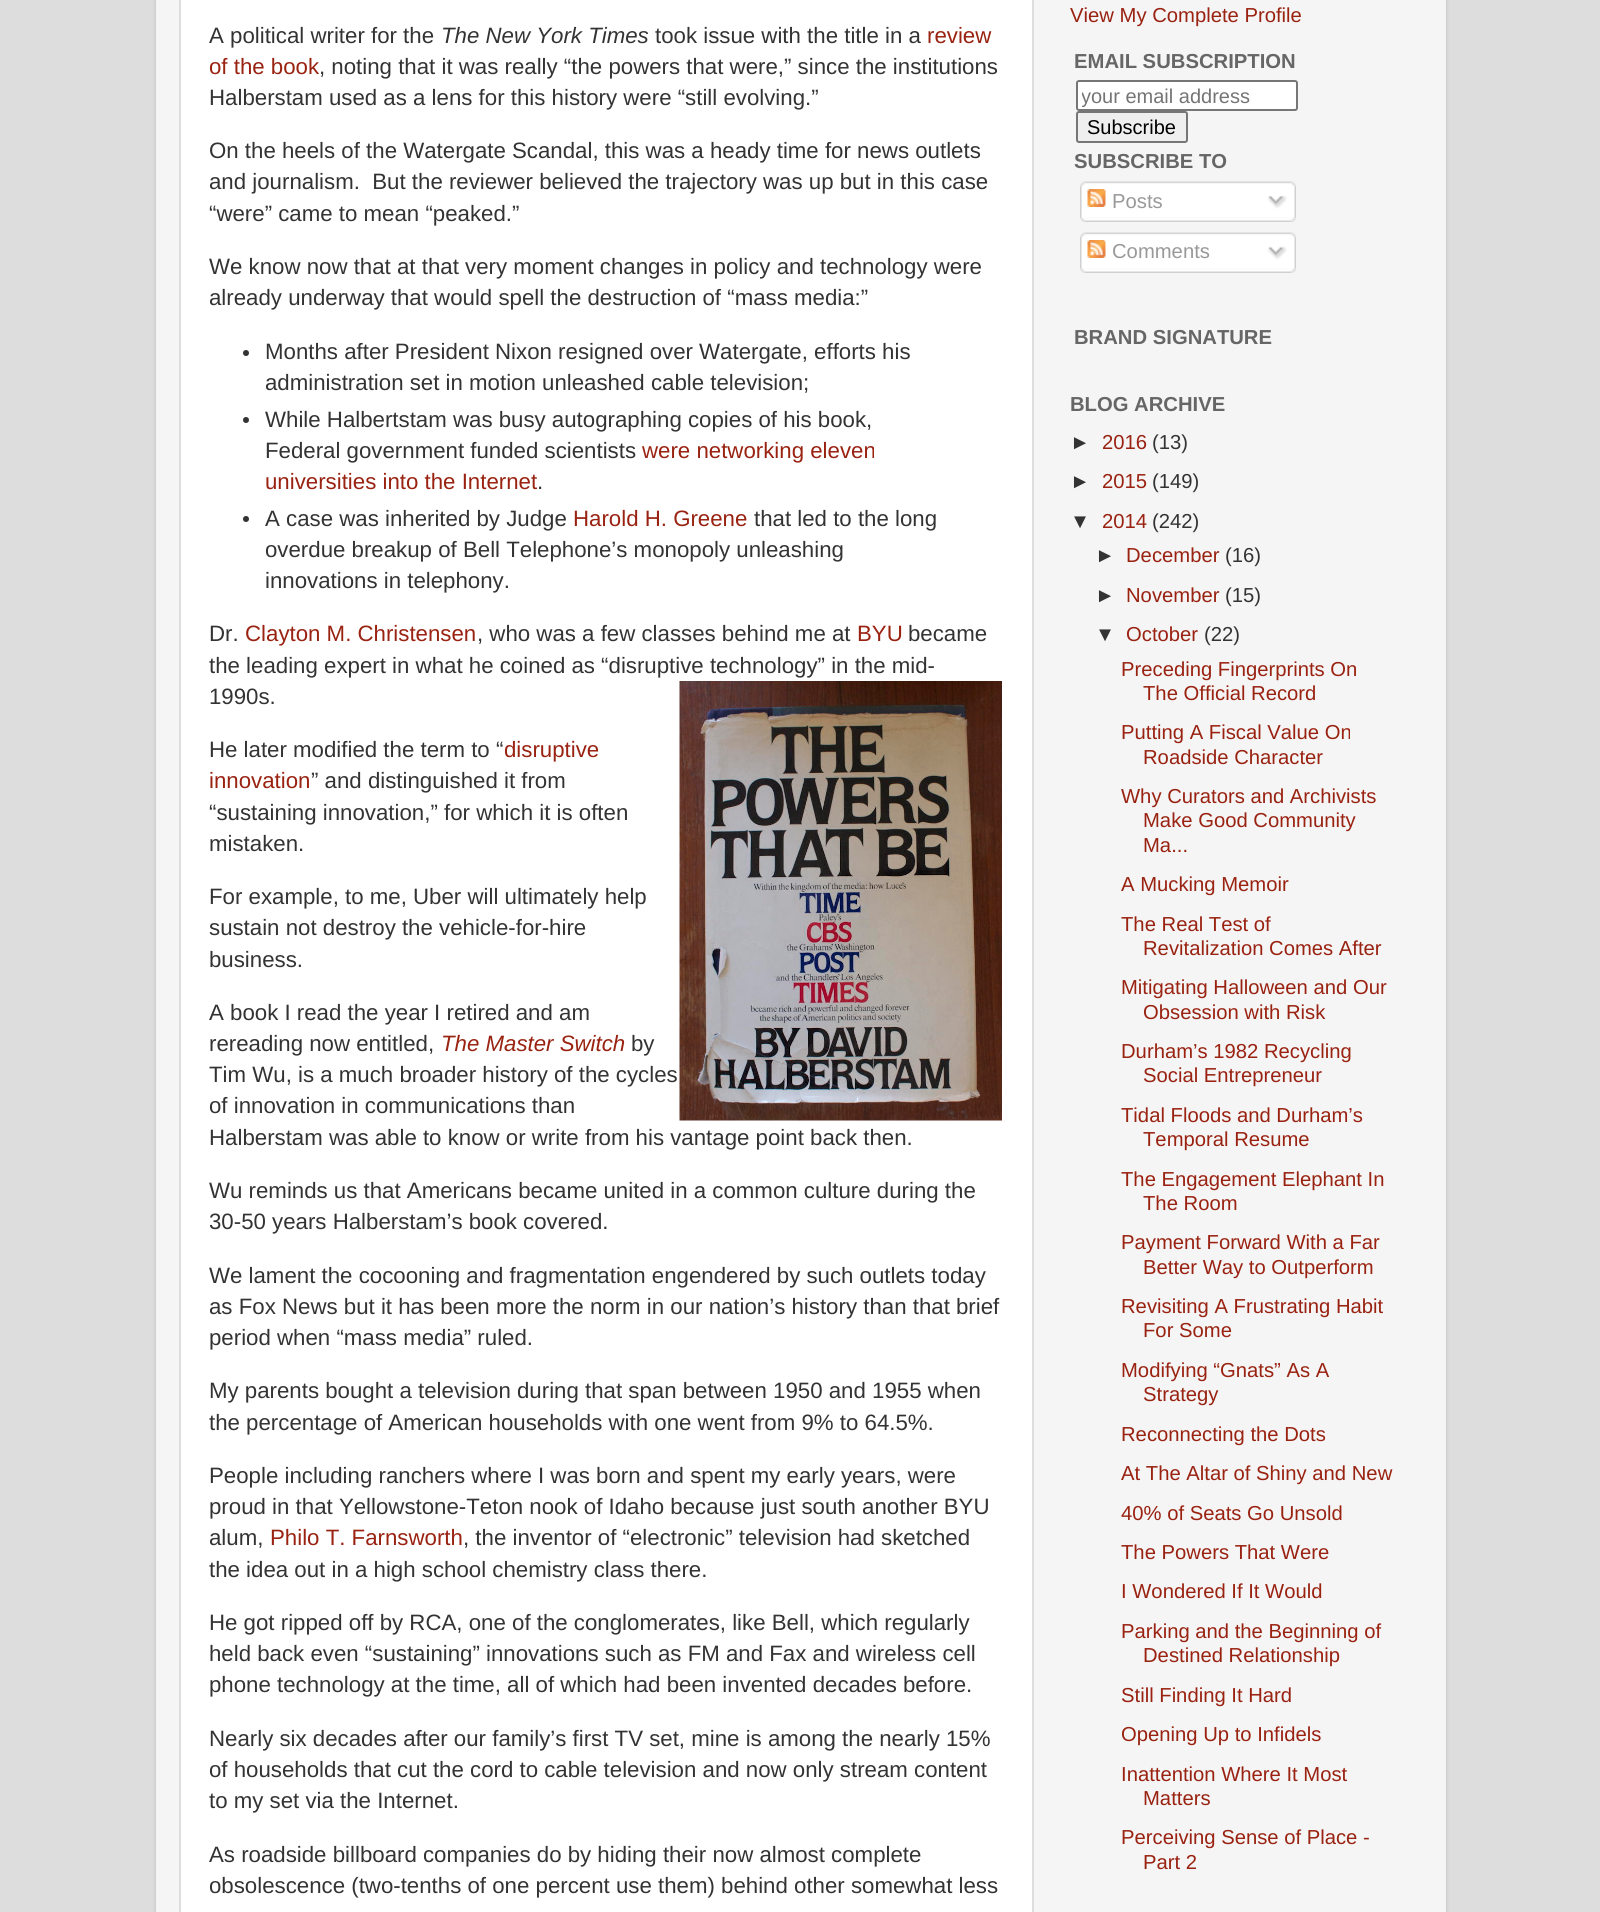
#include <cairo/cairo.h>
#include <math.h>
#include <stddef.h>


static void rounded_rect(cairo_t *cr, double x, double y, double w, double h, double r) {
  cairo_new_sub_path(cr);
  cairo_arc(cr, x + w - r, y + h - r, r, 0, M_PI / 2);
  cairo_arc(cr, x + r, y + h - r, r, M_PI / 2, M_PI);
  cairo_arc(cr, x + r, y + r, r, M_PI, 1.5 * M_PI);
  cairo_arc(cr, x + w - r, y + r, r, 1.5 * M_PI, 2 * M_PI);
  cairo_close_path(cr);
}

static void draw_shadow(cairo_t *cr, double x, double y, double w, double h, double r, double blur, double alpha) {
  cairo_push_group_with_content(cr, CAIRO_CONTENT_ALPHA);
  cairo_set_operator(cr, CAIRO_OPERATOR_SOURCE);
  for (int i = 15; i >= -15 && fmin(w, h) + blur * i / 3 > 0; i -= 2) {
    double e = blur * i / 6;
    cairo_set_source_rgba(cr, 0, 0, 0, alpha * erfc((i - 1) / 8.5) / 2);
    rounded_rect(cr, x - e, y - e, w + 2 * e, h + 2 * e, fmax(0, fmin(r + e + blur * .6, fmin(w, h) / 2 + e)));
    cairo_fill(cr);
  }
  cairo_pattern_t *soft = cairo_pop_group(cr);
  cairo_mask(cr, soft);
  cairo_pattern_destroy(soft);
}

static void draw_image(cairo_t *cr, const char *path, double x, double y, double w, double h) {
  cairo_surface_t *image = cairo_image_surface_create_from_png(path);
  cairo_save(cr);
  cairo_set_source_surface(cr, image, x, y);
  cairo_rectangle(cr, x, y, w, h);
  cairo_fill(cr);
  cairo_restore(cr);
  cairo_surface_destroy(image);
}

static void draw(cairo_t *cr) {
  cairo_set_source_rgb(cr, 221 / 255.0, 221 / 255.0, 221 / 255.0);
  cairo_paint(cr);
  cairo_set_source_rgb(cr, 0, 0, 0);
  draw_shadow(cr, 156, -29, 1290, 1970, 23, 2, 0.15);
  cairo_set_source_rgb(cr, 245 / 255.0, 245 / 255.0, 245 / 255.0);
  cairo_rectangle(cr, 156, 0, 1290, 1912);
  cairo_fill(cr);
  cairo_set_source_rgb(cr, 1, 1, 1);
  cairo_rectangle(cr, 180, -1, 853, 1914);
  cairo_fill_preserve(cr);
  cairo_set_source_rgb(cr, 221 / 255.0, 221 / 255.0, 221 / 255.0);
  cairo_stroke(cr);
  cairo_set_source_rgb(cr, 51 / 255.0, 51 / 255.0, 51 / 255.0);
  cairo_arc(cr, 246, 353, 3, 0, 2 * M_PI);
  cairo_fill(cr);
  cairo_arc(cr, 246, 420, 3, 0, 2 * M_PI);
  cairo_fill(cr);
  cairo_arc(cr, 246, 519, 3, 0, 2 * M_PI);
  cairo_fill(cr);
  draw_image(cr, "images/1.png", 679, 681, 323, 440);
  cairo_set_source_rgb(cr, 1, 1, 1);
  rounded_rect(cr, 1077, 81, 220, 29, 2);
  cairo_fill_preserve(cr);
  cairo_set_source_rgb(cr, 118 / 255.0, 118 / 255.0, 118 / 255.0);
  cairo_stroke(cr);
  cairo_set_source_rgb(cr, 239 / 255.0, 239 / 255.0, 239 / 255.0);
  rounded_rect(cr, 1077, 112, 110, 30, 2);
  cairo_fill_preserve(cr);
  cairo_set_source_rgb(cr, 118 / 255.0, 118 / 255.0, 118 / 255.0);
  cairo_stroke(cr);
  draw_image(cr, "images/2.png", 1080, 181, 216, 37);
  draw_image(cr, "images/3.png", 1087, 189, 19, 18);
  draw_image(cr, "images/4.png", 1267, 195, 20, 14);
  draw_image(cr, "images/5.png", 1080, 217, 216, 5);
  draw_image(cr, "images/2.png", 1080, 232, 216, 37);
  draw_image(cr, "images/3.png", 1087, 240, 19, 18);
  draw_image(cr, "images/4.png", 1267, 246, 20, 14);
  draw_image(cr, "images/5.png", 1080, 268, 216, 5);
  cairo_select_font_face(cr, "Liberation Sans", CAIRO_FONT_SLANT_NORMAL, CAIRO_FONT_WEIGHT_NORMAL);
  cairo_set_font_size(cr, 22.25);
  cairo_set_source_rgb(cr, 51 / 255.0, 51 / 255.0, 51 / 255.0);
  cairo_move_to(cr, 209, 43);
  cairo_show_text(cr, "A political writer for the");
  cairo_select_font_face(cr, "Liberation Sans", CAIRO_FONT_SLANT_ITALIC, CAIRO_FONT_WEIGHT_NORMAL);
  cairo_move_to(cr, 441, 43);
  cairo_show_text(cr, "The New York Times");
  cairo_select_font_face(cr, "Liberation Sans", CAIRO_FONT_SLANT_NORMAL, CAIRO_FONT_WEIGHT_NORMAL);
  cairo_move_to(cr, 655, 43);
  cairo_show_text(cr, "took issue with the title in a");
  cairo_set_source_rgb(cr, 153 / 255.0, 34 / 255.0, 17 / 255.0);
  cairo_move_to(cr, 927, 43);
  cairo_show_text(cr, "review");
  cairo_move_to(cr, 209, 74);
  cairo_show_text(cr, "of the book");
  cairo_set_source_rgb(cr, 51 / 255.0, 51 / 255.0, 51 / 255.0);
  cairo_move_to(cr, 319, 74);
  cairo_show_text(cr, ", noting that it was really “the powers that were,” since the institutions");
  cairo_move_to(cr, 209, 105);
  cairo_show_text(cr, "Halberstam used as a lens for this history were “still evolving.”");
  cairo_move_to(cr, 209, 158);
  cairo_show_text(cr, "On the heels of the Watergate Scandal, this was a heady time for news outlets");
  cairo_move_to(cr, 209, 189);
  cairo_show_text(cr, "and journalism.  But the reviewer believed the trajectory was up but in this case");
  cairo_move_to(cr, 209, 221);
  cairo_show_text(cr, "“were” came to mean “peaked.”");
  cairo_move_to(cr, 209, 274);
  cairo_show_text(cr, "We know now that at that very moment changes in policy and technology were");
  cairo_move_to(cr, 209, 305);
  cairo_show_text(cr, "already underway that would spell the destruction of “mass media:”");
  cairo_move_to(cr, 265, 359);
  cairo_show_text(cr, "Months after President Nixon resigned over Watergate, efforts his");
  cairo_move_to(cr, 265, 390);
  cairo_show_text(cr, "administration set in motion unleashed cable television;");
  cairo_move_to(cr, 265, 427);
  cairo_show_text(cr, "While Halbertstam was busy autographing copies of his book,");
  cairo_move_to(cr, 265, 458);
  cairo_show_text(cr, "Federal government funded scientists");
  cairo_set_source_rgb(cr, 153 / 255.0, 34 / 255.0, 17 / 255.0);
  cairo_move_to(cr, 642, 458);
  cairo_show_text(cr, "were networking eleven");
  cairo_move_to(cr, 265, 489);
  cairo_show_text(cr, "universities into the Internet");
  cairo_set_source_rgb(cr, 51 / 255.0, 51 / 255.0, 51 / 255.0);
  cairo_move_to(cr, 537, 489);
  cairo_show_text(cr, ".");
  cairo_move_to(cr, 265, 526);
  cairo_show_text(cr, "A case was inherited by Judge");
  cairo_set_source_rgb(cr, 153 / 255.0, 34 / 255.0, 17 / 255.0);
  cairo_move_to(cr, 573, 526);
  cairo_show_text(cr, "Harold H. Greene");
  cairo_set_source_rgb(cr, 51 / 255.0, 51 / 255.0, 51 / 255.0);
  cairo_move_to(cr, 754, 526);
  cairo_show_text(cr, "that led to the long");
  cairo_move_to(cr, 265, 557);
  cairo_show_text(cr, "overdue breakup of Bell Telephone’s monopoly unleashing");
  cairo_move_to(cr, 265, 588);
  cairo_show_text(cr, "innovations in telephony.");
  cairo_move_to(cr, 209, 641);
  cairo_show_text(cr, "Dr.");
  cairo_set_source_rgb(cr, 153 / 255.0, 34 / 255.0, 17 / 255.0);
  cairo_move_to(cr, 245, 641);
  cairo_show_text(cr, "Clayton M. Christensen");
  cairo_set_source_rgb(cr, 51 / 255.0, 51 / 255.0, 51 / 255.0);
  cairo_move_to(cr, 477, 641);
  cairo_show_text(cr, ", who was a few classes behind me at");
  cairo_set_source_rgb(cr, 153 / 255.0, 34 / 255.0, 17 / 255.0);
  cairo_move_to(cr, 857, 641);
  cairo_show_text(cr, "BYU");
  cairo_set_source_rgb(cr, 51 / 255.0, 51 / 255.0, 51 / 255.0);
  cairo_move_to(cr, 908, 641);
  cairo_show_text(cr, "became");
  cairo_move_to(cr, 209, 673);
  cairo_show_text(cr, "the leading expert in what he coined as “disruptive technology” in the mid-");
  cairo_move_to(cr, 209, 704);
  cairo_show_text(cr, "1990s.");
  cairo_move_to(cr, 209, 757);
  cairo_show_text(cr, "He later modified the term to “");
  cairo_set_source_rgb(cr, 153 / 255.0, 34 / 255.0, 17 / 255.0);
  cairo_move_to(cr, 504, 757);
  cairo_show_text(cr, "disruptive");
  cairo_move_to(cr, 209, 788);
  cairo_show_text(cr, "innovation");
  cairo_set_source_rgb(cr, 51 / 255.0, 51 / 255.0, 51 / 255.0);
  cairo_move_to(cr, 311, 788);
  cairo_show_text(cr, "” and distinguished it from");
  cairo_move_to(cr, 209, 820);
  cairo_show_text(cr, "“sustaining innovation,” for which it is often");
  cairo_move_to(cr, 209, 851);
  cairo_show_text(cr, "mistaken.");
  cairo_move_to(cr, 209, 904);
  cairo_show_text(cr, "For example, to me, Uber will ultimately help");
  cairo_move_to(cr, 209, 935);
  cairo_show_text(cr, "sustain not destroy the vehicle-for-hire");
  cairo_move_to(cr, 209, 967);
  cairo_show_text(cr, "business.");
  cairo_move_to(cr, 209, 1020);
  cairo_show_text(cr, "A book I read the year I retired and am");
  cairo_move_to(cr, 209, 1051);
  cairo_show_text(cr, "rereading now entitled,");
  cairo_select_font_face(cr, "Liberation Sans", CAIRO_FONT_SLANT_ITALIC, CAIRO_FONT_WEIGHT_NORMAL);
  cairo_set_source_rgb(cr, 153 / 255.0, 34 / 255.0, 17 / 255.0);
  cairo_move_to(cr, 441, 1051);
  cairo_show_text(cr, "The Master Switch");
  cairo_select_font_face(cr, "Liberation Sans", CAIRO_FONT_SLANT_NORMAL, CAIRO_FONT_WEIGHT_NORMAL);
  cairo_set_source_rgb(cr, 51 / 255.0, 51 / 255.0, 51 / 255.0);
  cairo_move_to(cr, 631, 1051);
  cairo_show_text(cr, "by");
  cairo_move_to(cr, 209, 1082);
  cairo_show_text(cr, "Tim Wu, is a much broader history of the cycles");
  cairo_move_to(cr, 209, 1113);
  cairo_show_text(cr, "of innovation in communications than");
  cairo_move_to(cr, 209, 1145);
  cairo_show_text(cr, "Halberstam was able to know or write from his vantage point back then.");
  cairo_move_to(cr, 209, 1198);
  cairo_show_text(cr, "Wu reminds us that Americans became united in a common culture during the");
  cairo_move_to(cr, 209, 1229);
  cairo_show_text(cr, "30-50 years Halberstam’s book covered.");
  cairo_move_to(cr, 209, 1283);
  cairo_show_text(cr, "We lament the cocooning and fragmentation engendered by such outlets today");
  cairo_move_to(cr, 209, 1314);
  cairo_show_text(cr, "as Fox News but it has been more the norm in our nation’s history than that brief");
  cairo_move_to(cr, 209, 1345);
  cairo_show_text(cr, "period when “mass media” ruled.");
  cairo_move_to(cr, 209, 1398);
  cairo_show_text(cr, "My parents bought a television during that span between 1950 and 1955 when");
  cairo_move_to(cr, 209, 1430);
  cairo_show_text(cr, "the percentage of American households with one went from 9% to 64.5%.");
  cairo_move_to(cr, 209, 1483);
  cairo_show_text(cr, "People including ranchers where I was born and spent my early years, were");
  cairo_move_to(cr, 209, 1514);
  cairo_show_text(cr, "proud in that Yellowstone-Teton nook of Idaho because just south another BYU");
  cairo_move_to(cr, 209, 1545);
  cairo_show_text(cr, "alum,");
  cairo_set_source_rgb(cr, 153 / 255.0, 34 / 255.0, 17 / 255.0);
  cairo_move_to(cr, 270, 1545);
  cairo_show_text(cr, "Philo T. Farnsworth");
  cairo_set_source_rgb(cr, 51 / 255.0, 51 / 255.0, 51 / 255.0);
  cairo_move_to(cr, 463, 1545);
  cairo_show_text(cr, ", the inventor of “electronic” television had sketched");
  cairo_move_to(cr, 209, 1577);
  cairo_show_text(cr, "the idea out in a high school chemistry class there.");
  cairo_move_to(cr, 209, 1630);
  cairo_show_text(cr, "He got ripped off by RCA, one of the conglomerates, like Bell, which regularly");
  cairo_move_to(cr, 209, 1661);
  cairo_show_text(cr, "held back even “sustaining” innovations such as FM and Fax and wireless cell");
  cairo_move_to(cr, 209, 1692);
  cairo_show_text(cr, "phone technology at the time, all of which had been invented decades before.");
  cairo_move_to(cr, 209, 1746);
  cairo_show_text(cr, "Nearly six decades after our family’s first TV set, mine is among the nearly 15%");
  cairo_move_to(cr, 209, 1777);
  cairo_show_text(cr, "of households that cut the cord to cable television and now only stream content");
  cairo_move_to(cr, 209, 1808);
  cairo_show_text(cr, "to my set via the Internet.");
  cairo_move_to(cr, 209, 1862);
  cairo_show_text(cr, "As roadside billboard companies do by hiding their now almost complete");
  cairo_move_to(cr, 209, 1893);
  cairo_show_text(cr, "obsolescence (two-tenths of one percent use them) behind other somewhat less");
  cairo_set_font_size(cr, 20.25);
  cairo_set_source_rgb(cr, 153 / 255.0, 34 / 255.0, 17 / 255.0);
  cairo_move_to(cr, 1070, 22);
  cairo_show_text(cr, "View My Complete Profile");
  cairo_select_font_face(cr, "Liberation Sans", CAIRO_FONT_SLANT_NORMAL, CAIRO_FONT_WEIGHT_BOLD);
  cairo_set_source_rgb(cr, 102 / 255.0, 102 / 255.0, 102 / 255.0);
  cairo_move_to(cr, 1074, 68);
  cairo_show_text(cr, "EMAIL SUBSCRIPTION");
  cairo_save(cr);
  cairo_rectangle(cr, 1082, 84, 210, 23);
  cairo_clip(cr);
  cairo_select_font_face(cr, "Liberation Sans", CAIRO_FONT_SLANT_NORMAL, CAIRO_FONT_WEIGHT_NORMAL);
  cairo_set_font_size(cr, 20);
  cairo_set_source_rgb(cr, 117 / 255.0, 117 / 255.0, 117 / 255.0);
  cairo_move_to(cr, 1081, 103);
  cairo_show_text(cr, "your email address");
  cairo_restore(cr);
  cairo_select_font_face(cr, "Liberation Sans", CAIRO_FONT_SLANT_NORMAL, CAIRO_FONT_WEIGHT_NORMAL);
  cairo_set_font_size(cr, 20);
  cairo_set_source_rgb(cr, 0, 0, 0);
  cairo_move_to(cr, 1087, 134);
  cairo_show_text(cr, "Subscribe");
  cairo_select_font_face(cr, "Liberation Sans", CAIRO_FONT_SLANT_NORMAL, CAIRO_FONT_WEIGHT_BOLD);
  cairo_set_font_size(cr, 20.25);
  cairo_set_source_rgb(cr, 102 / 255.0, 102 / 255.0, 102 / 255.0);
  cairo_move_to(cr, 1074, 168);
  cairo_show_text(cr, "SUBSCRIBE TO");
  cairo_select_font_face(cr, "Liberation Sans", CAIRO_FONT_SLANT_NORMAL, CAIRO_FONT_WEIGHT_NORMAL);
  cairo_set_source_rgb(cr, 153 / 255.0, 153 / 255.0, 153 / 255.0);
  cairo_move_to(cr, 1112, 208);
  cairo_show_text(cr, "Posts");
  cairo_move_to(cr, 1112, 258);
  cairo_show_text(cr, "Comments");
  cairo_select_font_face(cr, "Liberation Sans", CAIRO_FONT_SLANT_NORMAL, CAIRO_FONT_WEIGHT_BOLD);
  cairo_set_source_rgb(cr, 102 / 255.0, 102 / 255.0, 102 / 255.0);
  cairo_move_to(cr, 1074, 344);
  cairo_show_text(cr, "BRAND SIGNATURE");
  cairo_move_to(cr, 1070, 411);
  cairo_show_text(cr, "BLOG ARCHIVE");
  cairo_select_font_face(cr, "Liberation Sans", CAIRO_FONT_SLANT_NORMAL, CAIRO_FONT_WEIGHT_NORMAL);
  cairo_set_source_rgb(cr, 51 / 255.0, 51 / 255.0, 51 / 255.0);
  cairo_move_to(cr, 1070, 449);
  cairo_show_text(cr, "►");
  cairo_set_source_rgb(cr, 153 / 255.0, 34 / 255.0, 17 / 255.0);
  cairo_move_to(cr, 1102, 449);
  cairo_show_text(cr, "2016");
  cairo_set_source_rgb(cr, 51 / 255.0, 51 / 255.0, 51 / 255.0);
  cairo_move_to(cr, 1152, 449);
  cairo_show_text(cr, "(13)");
  cairo_move_to(cr, 1070, 488);
  cairo_show_text(cr, "►");
  cairo_set_source_rgb(cr, 153 / 255.0, 34 / 255.0, 17 / 255.0);
  cairo_move_to(cr, 1102, 488);
  cairo_show_text(cr, "2015");
  cairo_set_source_rgb(cr, 51 / 255.0, 51 / 255.0, 51 / 255.0);
  cairo_move_to(cr, 1152, 488);
  cairo_show_text(cr, "(149)");
  cairo_move_to(cr, 1070, 528);
  cairo_show_text(cr, "▼");
  cairo_set_source_rgb(cr, 153 / 255.0, 34 / 255.0, 17 / 255.0);
  cairo_move_to(cr, 1102, 528);
  cairo_show_text(cr, "2014");
  cairo_set_source_rgb(cr, 51 / 255.0, 51 / 255.0, 51 / 255.0);
  cairo_move_to(cr, 1152, 528);
  cairo_show_text(cr, "(242)");
  cairo_move_to(cr, 1095, 562);
  cairo_show_text(cr, "►");
  cairo_set_source_rgb(cr, 153 / 255.0, 34 / 255.0, 17 / 255.0);
  cairo_move_to(cr, 1126, 562);
  cairo_show_text(cr, "December");
  cairo_set_source_rgb(cr, 51 / 255.0, 51 / 255.0, 51 / 255.0);
  cairo_move_to(cr, 1225, 562);
  cairo_show_text(cr, "(16)");
  cairo_move_to(cr, 1095, 602);
  cairo_show_text(cr, "►");
  cairo_set_source_rgb(cr, 153 / 255.0, 34 / 255.0, 17 / 255.0);
  cairo_move_to(cr, 1126, 602);
  cairo_show_text(cr, "November");
  cairo_set_source_rgb(cr, 51 / 255.0, 51 / 255.0, 51 / 255.0);
  cairo_move_to(cr, 1225, 602);
  cairo_show_text(cr, "(15)");
  cairo_move_to(cr, 1095, 641);
  cairo_show_text(cr, "▼");
  cairo_set_source_rgb(cr, 153 / 255.0, 34 / 255.0, 17 / 255.0);
  cairo_move_to(cr, 1126, 641);
  cairo_show_text(cr, "October");
  cairo_set_source_rgb(cr, 51 / 255.0, 51 / 255.0, 51 / 255.0);
  cairo_move_to(cr, 1204, 641);
  cairo_show_text(cr, "(22)");
  cairo_set_source_rgb(cr, 153 / 255.0, 34 / 255.0, 17 / 255.0);
  cairo_move_to(cr, 1121, 676);
  cairo_show_text(cr, "Preceding Fingerprints On");
  cairo_move_to(cr, 1143, 700);
  cairo_show_text(cr, "The Official Record");
  cairo_move_to(cr, 1121, 739);
  cairo_show_text(cr, "Putting A Fiscal Value On");
  cairo_move_to(cr, 1143, 764);
  cairo_show_text(cr, "Roadside Character");
  cairo_move_to(cr, 1121, 803);
  cairo_show_text(cr, "Why Curators and Archivists");
  cairo_move_to(cr, 1143, 827);
  cairo_show_text(cr, "Make Good Community");
  cairo_move_to(cr, 1143, 852);
  cairo_show_text(cr, "Ma...");
  cairo_move_to(cr, 1121, 891);
  cairo_show_text(cr, "A Mucking Memoir");
  cairo_move_to(cr, 1121, 931);
  cairo_show_text(cr, "The Real Test of");
  cairo_move_to(cr, 1143, 955);
  cairo_show_text(cr, "Revitalization Comes After");
  cairo_move_to(cr, 1121, 994);
  cairo_show_text(cr, "Mitigating Halloween and Our");
  cairo_move_to(cr, 1143, 1019);
  cairo_show_text(cr, "Obsession with Risk");
  cairo_move_to(cr, 1121, 1058);
  cairo_show_text(cr, "Durham’s 1982 Recycling");
  cairo_move_to(cr, 1143, 1082);
  cairo_show_text(cr, "Social Entrepreneur");
  cairo_move_to(cr, 1121, 1122);
  cairo_show_text(cr, "Tidal Floods and Durham’s");
  cairo_move_to(cr, 1143, 1146);
  cairo_show_text(cr, "Temporal Resume");
  cairo_move_to(cr, 1121, 1186);
  cairo_show_text(cr, "The Engagement Elephant In");
  cairo_move_to(cr, 1143, 1210);
  cairo_show_text(cr, "The Room");
  cairo_move_to(cr, 1121, 1249);
  cairo_show_text(cr, "Payment Forward With a Far");
  cairo_move_to(cr, 1143, 1274);
  cairo_show_text(cr, "Better Way to Outperform");
  cairo_move_to(cr, 1121, 1313);
  cairo_show_text(cr, "Revisiting A Frustrating Habit");
  cairo_move_to(cr, 1143, 1337);
  cairo_show_text(cr, "For Some");
  cairo_move_to(cr, 1121, 1377);
  cairo_show_text(cr, "Modifying “Gnats” As A");
  cairo_move_to(cr, 1143, 1401);
  cairo_show_text(cr, "Strategy");
  cairo_move_to(cr, 1121, 1441);
  cairo_show_text(cr, "Reconnecting the Dots");
  cairo_move_to(cr, 1121, 1480);
  cairo_show_text(cr, "At The Altar of Shiny and New");
  cairo_move_to(cr, 1121, 1520);
  cairo_show_text(cr, "40% of Seats Go Unsold");
  cairo_move_to(cr, 1121, 1559);
  cairo_show_text(cr, "The Powers That Were");
  cairo_move_to(cr, 1121, 1598);
  cairo_show_text(cr, "I Wondered If It Would");
  cairo_move_to(cr, 1121, 1638);
  cairo_show_text(cr, "Parking and the Beginning of");
  cairo_move_to(cr, 1143, 1662);
  cairo_show_text(cr, "Destined Relationship");
  cairo_move_to(cr, 1121, 1702);
  cairo_show_text(cr, "Still Finding It Hard");
  cairo_move_to(cr, 1121, 1741);
  cairo_show_text(cr, "Opening Up to Infidels");
  cairo_move_to(cr, 1121, 1781);
  cairo_show_text(cr, "Inattention Where It Most");
  cairo_move_to(cr, 1143, 1805);
  cairo_show_text(cr, "Matters");
  cairo_move_to(cr, 1121, 1844);
  cairo_show_text(cr, "Perceiving Sense of Place -");
  cairo_move_to(cr, 1143, 1869);
  cairo_show_text(cr, "Part 2");
}

int main(void) {
  cairo_surface_t *surface = cairo_image_surface_create(CAIRO_FORMAT_RGB24, 1600, 1912);
  cairo_t *cr = cairo_create(surface);
  cairo_font_options_t *options = cairo_font_options_create();
  cairo_font_options_set_hint_metrics(options, CAIRO_HINT_METRICS_OFF);
  cairo_font_options_set_hint_style(options, CAIRO_HINT_STYLE_NONE);
  cairo_set_font_options(cr, options);
  cairo_set_miter_limit(cr, 4);
  draw(cr);
  cairo_surface_write_to_png(surface, "out.png");
  cairo_font_options_destroy(options);
  cairo_destroy(cr);
  cairo_surface_destroy(surface);
  return 0;
}
